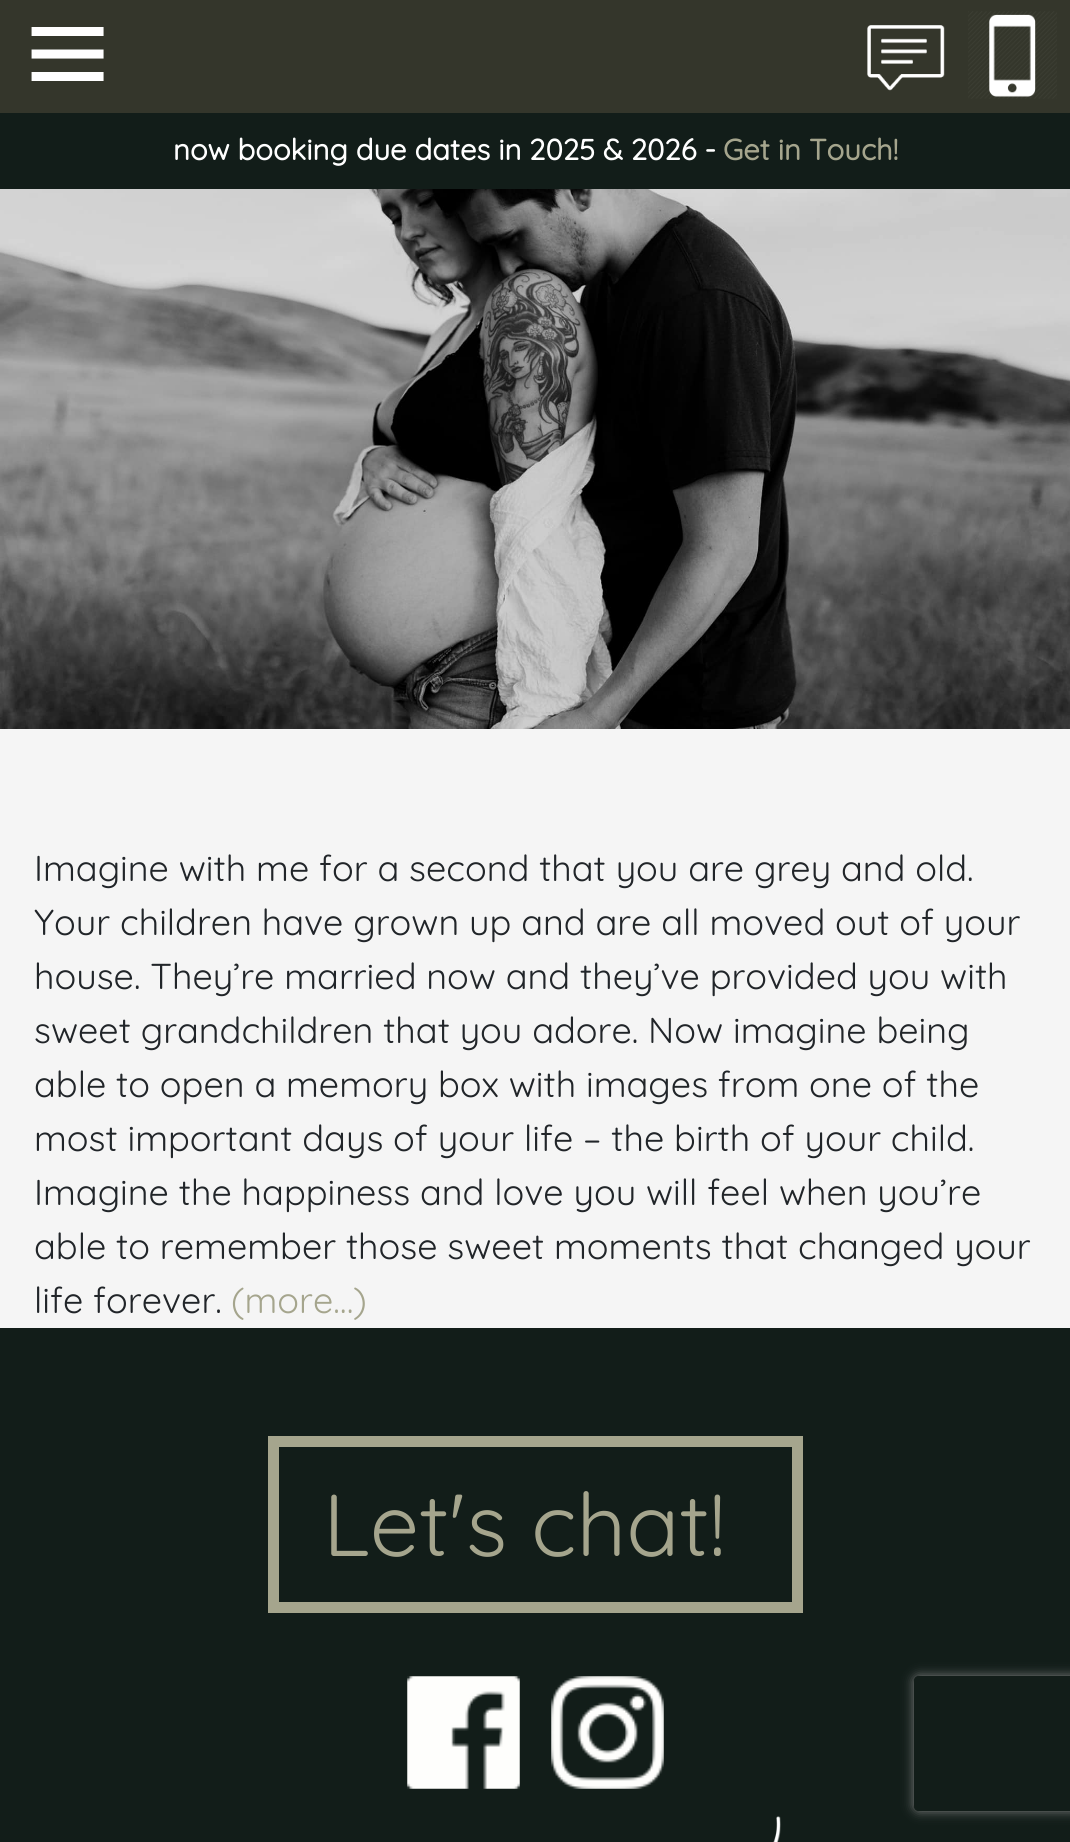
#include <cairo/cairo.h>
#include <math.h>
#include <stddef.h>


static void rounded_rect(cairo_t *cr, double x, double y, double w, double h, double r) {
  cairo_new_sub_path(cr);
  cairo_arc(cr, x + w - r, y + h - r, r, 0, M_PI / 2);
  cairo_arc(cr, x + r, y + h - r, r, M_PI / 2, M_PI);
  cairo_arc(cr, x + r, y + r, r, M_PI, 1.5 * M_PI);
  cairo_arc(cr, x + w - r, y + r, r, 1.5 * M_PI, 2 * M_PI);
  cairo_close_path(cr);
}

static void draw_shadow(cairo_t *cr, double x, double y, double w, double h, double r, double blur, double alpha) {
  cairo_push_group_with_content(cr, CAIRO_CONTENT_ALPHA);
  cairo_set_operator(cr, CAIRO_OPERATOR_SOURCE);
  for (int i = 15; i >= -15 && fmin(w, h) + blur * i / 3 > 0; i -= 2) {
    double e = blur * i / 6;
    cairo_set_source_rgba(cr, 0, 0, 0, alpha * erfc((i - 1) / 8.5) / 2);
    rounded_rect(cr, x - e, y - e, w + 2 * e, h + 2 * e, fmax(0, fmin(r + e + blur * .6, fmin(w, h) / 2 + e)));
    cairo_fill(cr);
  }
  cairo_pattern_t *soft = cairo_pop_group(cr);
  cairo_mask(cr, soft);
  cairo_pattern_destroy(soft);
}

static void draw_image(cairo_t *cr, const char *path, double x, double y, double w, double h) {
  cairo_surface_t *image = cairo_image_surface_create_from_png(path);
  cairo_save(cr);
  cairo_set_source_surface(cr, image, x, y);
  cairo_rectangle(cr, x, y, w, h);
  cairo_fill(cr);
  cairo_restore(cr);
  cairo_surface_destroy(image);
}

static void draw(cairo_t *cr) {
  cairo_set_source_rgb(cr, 245 / 255.0, 245 / 255.0, 245 / 255.0);
  cairo_paint(cr);
  cairo_set_source_rgb(cr, 52 / 255.0, 54 / 255.0, 43 / 255.0);
  cairo_rectangle(cr, 0, 0, 1070, 113);
  cairo_fill(cr);
  draw_image(cr, "images/1.png", 31, 27, 73, 54);
  draw_image(cr, "images/2.png", 867, 25, 78, 66);
  draw_image(cr, "images/3.png", 968, 11, 89, 88);
  cairo_set_source_rgb(cr, 18 / 255.0, 29 / 255.0, 25 / 255.0);
  cairo_rectangle(cr, 0, 113, 1070, 76);
  cairo_fill(cr);
  draw_image(cr, "images/4.png", 0, 189, 1070, 540);
  cairo_rectangle(cr, 0, 1328, 1070, 514);
  cairo_fill(cr);
  cairo_rectangle(cr, 273.5, 1441.5, 524, 166);
  cairo_set_source_rgb(cr, 165 / 255.0, 165 / 255.0, 141 / 255.0);
  cairo_set_line_width(cr, 11);
  cairo_stroke(cr);
  draw_image(cr, "images/5.png", 407, 1676, 113, 113);
  draw_image(cr, "images/6.png", 551, 1676, 113, 113);
  draw_image(cr, "images/7.png", 773, 1816, 8, 26);
  cairo_save(cr);
  cairo_set_fill_rule(cr, CAIRO_FILL_RULE_EVEN_ODD);
  cairo_new_path(cr);
  cairo_move_to(cr, 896, 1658);
  cairo_line_to(cr, 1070, 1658);
  cairo_line_to(cr, 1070, 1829);
  cairo_line_to(cr, 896, 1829);
  cairo_close_path(cr);
  cairo_move_to(cr, 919, 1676);
  cairo_line_to(cr, 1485, 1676);
  cairo_curve_to(cr, 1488, 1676, 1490, 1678, 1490, 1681);
  cairo_line_to(cr, 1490, 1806);
  cairo_curve_to(cr, 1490, 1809, 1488, 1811, 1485, 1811);
  cairo_line_to(cr, 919, 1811);
  cairo_curve_to(cr, 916, 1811, 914, 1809, 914, 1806);
  cairo_line_to(cr, 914, 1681);
  cairo_curve_to(cr, 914, 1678, 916, 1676, 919, 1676);
  cairo_close_path(cr);
  cairo_clip(cr);
  cairo_set_source_rgb(cr, 128 / 255.0, 128 / 255.0, 128 / 255.0);
  draw_shadow(cr, 914, 1676, 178, 135, 5, 5.5, 1);
  cairo_restore(cr);
  cairo_select_font_face(cr, "Quicksand", CAIRO_FONT_SLANT_NORMAL, CAIRO_FONT_WEIGHT_BOLD);
  cairo_set_font_size(cr, 29.25);
  cairo_set_source_rgb(cr, 1, 1, 1);
  cairo_move_to(cr, 173, 160);
  cairo_show_text(cr, "now booking due dates in 2025 & 2026 -");
  cairo_set_source_rgb(cr, 165 / 255.0, 165 / 255.0, 141 / 255.0);
  cairo_move_to(cr, 723, 160);
  cairo_show_text(cr, "Get in Touch!");
  cairo_select_font_face(cr, "Quicksand", CAIRO_FONT_SLANT_NORMAL, CAIRO_FONT_WEIGHT_NORMAL);
  cairo_set_font_size(cr, 36);
  cairo_set_source_rgb(cr, 33 / 255.0, 37 / 255.0, 41 / 255.0);
  cairo_move_to(cr, 34, 881);
  cairo_show_text(cr, "Imagine with me for a second that you are grey and old.");
  cairo_move_to(cr, 34, 935);
  cairo_show_text(cr, "Your children have grown up and are all moved out of your");
  cairo_move_to(cr, 34, 989);
  cairo_show_text(cr, "house. They’re married now and they’ve provided you with");
  cairo_move_to(cr, 34, 1043);
  cairo_show_text(cr, "sweet grandchildren that you adore. Now imagine being");
  cairo_move_to(cr, 34, 1097);
  cairo_show_text(cr, "able to open a memory box with images from one of the");
  cairo_move_to(cr, 34, 1151);
  cairo_show_text(cr, "most important days of your life – the birth of your child.");
  cairo_move_to(cr, 34, 1205);
  cairo_show_text(cr, "Imagine the happiness and love you will feel when you’re");
  cairo_move_to(cr, 34, 1259);
  cairo_show_text(cr, "able to remember those sweet moments that changed your");
  cairo_move_to(cr, 34, 1313);
  cairo_show_text(cr, "life forever.");
  cairo_set_source_rgb(cr, 165 / 255.0, 165 / 255.0, 141 / 255.0);
  cairo_move_to(cr, 231, 1313);
  cairo_show_text(cr, "(more…)");
  cairo_set_font_size(cr, 87.75);
  cairo_move_to(cr, 323, 1556);
  cairo_show_text(cr, "Let's chat!");
}

int main(void) {
  cairo_surface_t *surface = cairo_image_surface_create(CAIRO_FORMAT_RGB24, 1070, 1842);
  cairo_t *cr = cairo_create(surface);
  cairo_font_options_t *options = cairo_font_options_create();
  cairo_font_options_set_hint_metrics(options, CAIRO_HINT_METRICS_OFF);
  cairo_font_options_set_hint_style(options, CAIRO_HINT_STYLE_NONE);
  cairo_set_font_options(cr, options);
  cairo_set_miter_limit(cr, 4);
  draw(cr);
  cairo_surface_write_to_png(surface, "out.png");
  cairo_font_options_destroy(options);
  cairo_destroy(cr);
  cairo_surface_destroy(surface);
  return 0;
}
